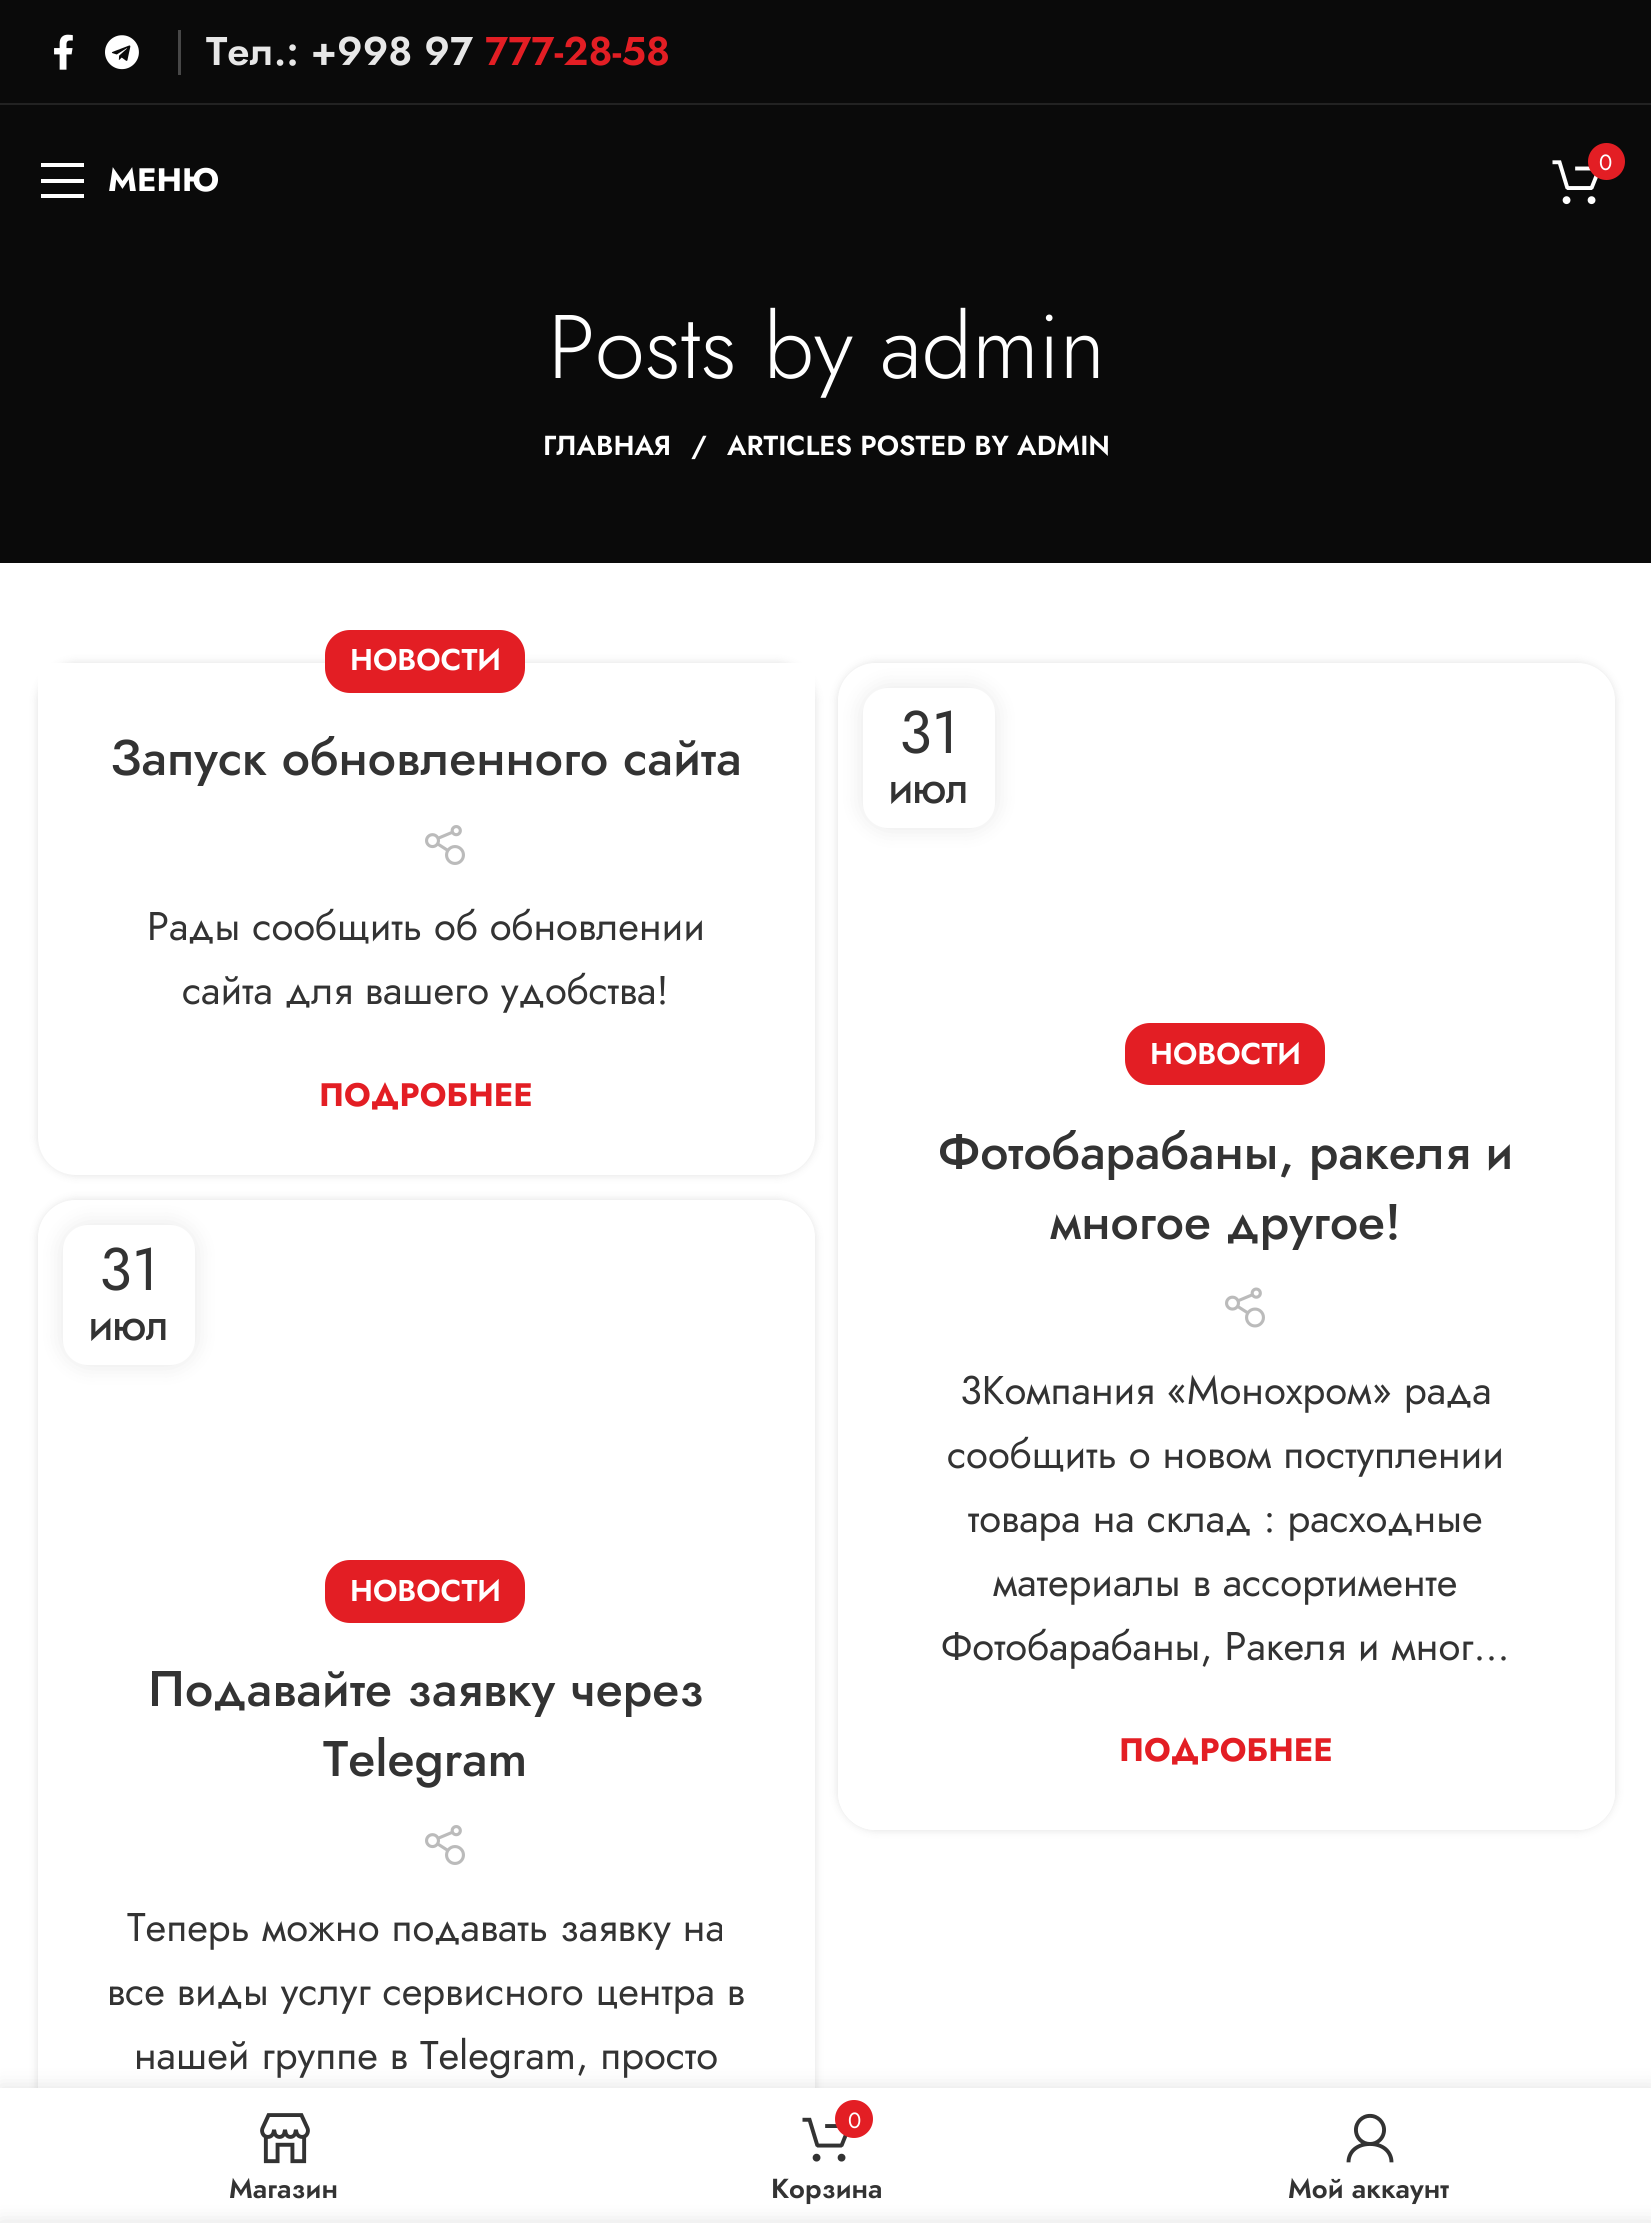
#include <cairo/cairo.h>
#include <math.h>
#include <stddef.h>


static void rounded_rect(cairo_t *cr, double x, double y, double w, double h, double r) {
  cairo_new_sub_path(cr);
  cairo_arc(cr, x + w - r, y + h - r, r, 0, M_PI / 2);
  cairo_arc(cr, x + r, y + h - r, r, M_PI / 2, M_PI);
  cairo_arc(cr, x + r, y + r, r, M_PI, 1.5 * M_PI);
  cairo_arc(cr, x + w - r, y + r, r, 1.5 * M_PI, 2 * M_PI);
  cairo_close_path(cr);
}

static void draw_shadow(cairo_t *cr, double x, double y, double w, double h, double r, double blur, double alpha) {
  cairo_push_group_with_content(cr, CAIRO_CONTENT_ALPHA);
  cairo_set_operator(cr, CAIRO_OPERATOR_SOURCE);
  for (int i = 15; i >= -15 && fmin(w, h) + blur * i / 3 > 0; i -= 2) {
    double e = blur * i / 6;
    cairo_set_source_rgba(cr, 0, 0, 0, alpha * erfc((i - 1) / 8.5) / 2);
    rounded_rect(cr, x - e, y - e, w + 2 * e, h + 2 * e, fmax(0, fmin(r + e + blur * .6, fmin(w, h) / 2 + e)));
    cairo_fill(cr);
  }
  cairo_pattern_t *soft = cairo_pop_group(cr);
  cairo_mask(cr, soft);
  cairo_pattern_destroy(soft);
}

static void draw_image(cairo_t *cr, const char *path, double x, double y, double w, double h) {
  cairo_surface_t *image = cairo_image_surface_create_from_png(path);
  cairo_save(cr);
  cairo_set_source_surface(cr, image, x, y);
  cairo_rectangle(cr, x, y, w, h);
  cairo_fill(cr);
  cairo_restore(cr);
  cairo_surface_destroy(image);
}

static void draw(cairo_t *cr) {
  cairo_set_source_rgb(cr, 1, 1, 1);
  cairo_paint(cr);
  cairo_set_source_rgb(cr, 10 / 255.0, 10 / 255.0, 10 / 255.0);
  cairo_rectangle(cr, 0, 0, 1651, 103);
  cairo_fill(cr);
  cairo_set_source_rgb(cr, 34 / 255.0, 34 / 255.0, 34 / 255.0);
  cairo_rectangle(cr, 0, 103, 1651, 2);
  cairo_fill(cr);
  draw_image(cr, "images/1.png", 54, 34, 19, 36);
  draw_image(cr, "images/2.png", 105, 35, 34, 35);
  cairo_set_source_rgb(cr, 71 / 255.0, 71 / 255.0, 71 / 255.0);
  cairo_rectangle(cr, 178, 30, 3, 45);
  cairo_fill(cr);
  cairo_set_source_rgb(cr, 10 / 255.0, 10 / 255.0, 10 / 255.0);
  cairo_rectangle(cr, 0, 105, 1651, 458);
  cairo_fill(cr);
  draw_image(cr, "images/3.png", 1552, 160, 46, 45);
  cairo_set_source_rgb(cr, 227 / 255.0, 30 / 255.0, 36 / 255.0);
  cairo_arc(cr, 1606.5, 161.5, 18.5, 0, 2 * M_PI);
  cairo_fill(cr);
  cairo_set_source_rgb(cr, 1, 1, 1);
  cairo_new_path(cr);
  cairo_move_to(cr, 41, 167);
  cairo_line_to(cr, 84, 167);
  cairo_line_to(cr, 84, 163);
  cairo_line_to(cr, 41, 163);
  cairo_close_path(cr);
  cairo_move_to(cr, 41, 183);
  cairo_line_to(cr, 84, 183);
  cairo_line_to(cr, 84, 179);
  cairo_line_to(cr, 41, 179);
  cairo_close_path(cr);
  cairo_move_to(cr, 41, 198);
  cairo_line_to(cr, 84, 198);
  cairo_line_to(cr, 84, 194);
  cairo_line_to(cr, 41, 194);
  cairo_close_path(cr);
  cairo_fill(cr);
  cairo_set_source_rgb(cr, 0, 0, 0);
  draw_shadow(cr, 38, 663, 777, 512, 38, 5, 0.12);
  cairo_set_source_rgb(cr, 1, 1, 1);
  cairo_new_path(cr);
  cairo_move_to(cr, 38, 663);
  cairo_line_to(cr, 815, 663);
  cairo_line_to(cr, 815, 1137);
  cairo_curve_to(cr, 815, 1158, 798, 1175, 777, 1175);
  cairo_line_to(cr, 76, 1175);
  cairo_curve_to(cr, 55, 1175, 38, 1158, 38, 1137);
  cairo_close_path(cr);
  cairo_fill(cr);
  cairo_set_source_rgb(cr, 227 / 255.0, 30 / 255.0, 36 / 255.0);
  rounded_rect(cr, 325, 630, 200, 63, 25);
  cairo_fill(cr);
  draw_image(cr, "images/4.png", 425, 825, 40, 40);
  cairo_save(cr);
  cairo_set_fill_rule(cr, CAIRO_FILL_RULE_EVEN_ODD);
  cairo_new_path(cr);
  cairo_move_to(cr, 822, 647);
  cairo_line_to(cr, 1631, 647);
  cairo_line_to(cr, 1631, 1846);
  cairo_line_to(cr, 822, 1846);
  cairo_close_path(cr);
  cairo_move_to(cr, 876, 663);
  cairo_line_to(cr, 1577, 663);
  cairo_curve_to(cr, 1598, 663, 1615, 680, 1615, 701);
  cairo_line_to(cr, 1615, 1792);
  cairo_curve_to(cr, 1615, 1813, 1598, 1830, 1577, 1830);
  cairo_line_to(cr, 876, 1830);
  cairo_curve_to(cr, 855, 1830, 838, 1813, 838, 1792);
  cairo_line_to(cr, 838, 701);
  cairo_curve_to(cr, 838, 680, 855, 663, 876, 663);
  cairo_close_path(cr);
  cairo_clip(cr);
  cairo_set_source_rgb(cr, 0, 0, 0);
  draw_shadow(cr, 838, 663, 777, 1167, 38, 5, 0.12);
  cairo_restore(cr);
  cairo_set_source_rgb(cr, 0, 0, 0);
  draw_shadow(cr, 863, 688, 132, 140, 25, 11, 0.1);
  cairo_set_source_rgb(cr, 1, 1, 1);
  rounded_rect(cr, 863, 688, 132, 140, 25);
  cairo_fill(cr);
  cairo_new_path(cr);
  cairo_move_to(cr, 838, 1055);
  cairo_line_to(cr, 1615, 1055);
  cairo_line_to(cr, 1615, 1792);
  cairo_curve_to(cr, 1615, 1813, 1598, 1830, 1577, 1830);
  cairo_line_to(cr, 876, 1830);
  cairo_curve_to(cr, 855, 1830, 838, 1813, 838, 1792);
  cairo_close_path(cr);
  cairo_fill(cr);
  cairo_set_source_rgb(cr, 227 / 255.0, 30 / 255.0, 36 / 255.0);
  rounded_rect(cr, 1125, 1023, 200, 62, 25);
  cairo_fill(cr);
  draw_image(cr, "images/5.png", 1225, 1287, 40, 41);
  cairo_save(cr);
  cairo_set_fill_rule(cr, CAIRO_FILL_RULE_EVEN_ODD);
  cairo_new_path(cr);
  cairo_move_to(cr, 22, 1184);
  cairo_line_to(cr, 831, 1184);
  cairo_line_to(cr, 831, 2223);
  cairo_line_to(cr, 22, 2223);
  cairo_close_path(cr);
  cairo_move_to(cr, 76, 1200);
  cairo_line_to(cr, 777, 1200);
  cairo_curve_to(cr, 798, 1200, 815, 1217, 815, 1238);
  cairo_line_to(cr, 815, 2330);
  cairo_curve_to(cr, 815, 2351, 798, 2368, 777, 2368);
  cairo_line_to(cr, 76, 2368);
  cairo_curve_to(cr, 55, 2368, 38, 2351, 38, 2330);
  cairo_line_to(cr, 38, 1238);
  cairo_curve_to(cr, 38, 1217, 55, 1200, 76, 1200);
  cairo_close_path(cr);
  cairo_clip(cr);
  cairo_set_source_rgb(cr, 0, 0, 0);
  draw_shadow(cr, 38, 1200, 777, 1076, 38, 5, 0.12);
  cairo_restore(cr);
  cairo_set_source_rgb(cr, 0, 0, 0);
  draw_shadow(cr, 63, 1225, 132, 140, 25, 11, 0.1);
  cairo_set_source_rgb(cr, 1, 1, 1);
  rounded_rect(cr, 63, 1225, 132, 140, 25);
  cairo_fill(cr);
  cairo_set_source_rgb(cr, 227 / 255.0, 30 / 255.0, 36 / 255.0);
  rounded_rect(cr, 325, 1560, 200, 63, 25);
  cairo_fill(cr);
  draw_image(cr, "images/4.png", 425, 1825, 40, 40);
  cairo_set_source_rgb(cr, 0, 0, 0);
  draw_shadow(cr, 0, 2088, 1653, 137, 0, 11, 0.12);
  cairo_set_source_rgb(cr, 1, 1, 1);
  cairo_rectangle(cr, 0, 2088, 1651, 135);
  cairo_fill(cr);
  draw_image(cr, "images/6.png", 260, 2113, 50, 51);
  draw_image(cr, "images/7.png", 802, 2117, 46, 45);
  cairo_set_source_rgb(cr, 227 / 255.0, 30 / 255.0, 36 / 255.0);
  cairo_arc(cr, 854, 2119, 19, 0, 2 * M_PI);
  cairo_fill(cr);
  draw_image(cr, "images/8.png", 1346, 2113, 48, 50);
  cairo_set_source_rgb(cr, 0, 0, 0);
  draw_shadow(cr, 0, 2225, 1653, 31, 0, 11, 0.14);
  cairo_select_font_face(cr, "Jost SemiBold", CAIRO_FONT_SLANT_NORMAL, CAIRO_FONT_WEIGHT_NORMAL);
  cairo_set_font_size(cr, 40);
  cairo_set_source_rgb(cr, 231 / 255.0, 231 / 255.0, 231 / 255.0);
  cairo_move_to(cr, 206, 65);
  cairo_show_text(cr, "Тел.: +998 97");
  cairo_set_source_rgb(cr, 227 / 255.0, 30 / 255.0, 36 / 255.0);
  cairo_move_to(cr, 485, 65);
  cairo_show_text(cr, "777-28-58");
  cairo_select_font_face(cr, "Jost", CAIRO_FONT_SLANT_NORMAL, CAIRO_FONT_WEIGHT_NORMAL);
  cairo_set_font_size(cr, 22);
  cairo_set_source_rgb(cr, 1, 1, 1);
  cairo_move_to(cr, 1599, 170);
  cairo_show_text(cr, "0");
  cairo_select_font_face(cr, "Jost", CAIRO_FONT_SLANT_NORMAL, CAIRO_FONT_WEIGHT_BOLD);
  cairo_set_font_size(cr, 32.5);
  cairo_move_to(cr, 108, 191);
  cairo_show_text(cr, "МЕНЮ");
  cairo_select_font_face(cr, "Jost Light", CAIRO_FONT_SLANT_NORMAL, CAIRO_FONT_WEIGHT_NORMAL);
  cairo_set_font_size(cr, 90);
  cairo_move_to(cr, 548, 378);
  cairo_show_text(cr, "Posts by admin");
  cairo_select_font_face(cr, "Jost SemiBold", CAIRO_FONT_SLANT_NORMAL, CAIRO_FONT_WEIGHT_NORMAL);
  cairo_set_font_size(cr, 27.5);
  cairo_move_to(cr, 543, 455);
  cairo_show_text(cr, "ГЛАВНАЯ");
  cairo_move_to(cr, 691, 455);
  cairo_show_text(cr, "/");
  cairo_move_to(cr, 727, 455);
  cairo_show_text(cr, "ARTICLES POSTED BY ADMIN");
  cairo_set_font_size(cr, 30);
  cairo_move_to(cr, 350, 670);
  cairo_show_text(cr, "НОВОСТИ");
  cairo_select_font_face(cr, "Jost Medium", CAIRO_FONT_SLANT_NORMAL, CAIRO_FONT_WEIGHT_NORMAL);
  cairo_set_font_size(cr, 50);
  cairo_set_source_rgb(cr, 51 / 255.0, 51 / 255.0, 51 / 255.0);
  cairo_move_to(cr, 110, 775);
  cairo_show_text(cr, "Запуск обновленного сайта");
  cairo_select_font_face(cr, "Jost", CAIRO_FONT_SLANT_NORMAL, CAIRO_FONT_WEIGHT_NORMAL);
  cairo_set_font_size(cr, 40);
  cairo_move_to(cr, 147, 940);
  cairo_show_text(cr, "Рады сообщить об обновлении");
  cairo_move_to(cr, 182, 1004);
  cairo_show_text(cr, "сайта для вашего удобства!");
  cairo_select_font_face(cr, "Jost", CAIRO_FONT_SLANT_NORMAL, CAIRO_FONT_WEIGHT_BOLD);
  cairo_set_font_size(cr, 32.5);
  cairo_set_source_rgb(cr, 227 / 255.0, 30 / 255.0, 36 / 255.0);
  cairo_move_to(cr, 319, 1106);
  cairo_show_text(cr, "ПОДРОБНЕЕ");
  cairo_select_font_face(cr, "Jost", CAIRO_FONT_SLANT_NORMAL, CAIRO_FONT_WEIGHT_NORMAL);
  cairo_set_font_size(cr, 60);
  cairo_set_source_rgb(cr, 51 / 255.0, 51 / 255.0, 51 / 255.0);
  cairo_move_to(cr, 899, 753);
  cairo_show_text(cr, "31");
  cairo_select_font_face(cr, "Jost SemiBold", CAIRO_FONT_SLANT_NORMAL, CAIRO_FONT_WEIGHT_NORMAL);
  cairo_set_font_size(cr, 30);
  cairo_move_to(cr, 889, 803);
  cairo_show_text(cr, "ИЮЛ");
  cairo_set_source_rgb(cr, 1, 1, 1);
  cairo_move_to(cr, 1150, 1064);
  cairo_show_text(cr, "НОВОСТИ");
  cairo_select_font_face(cr, "Jost Medium", CAIRO_FONT_SLANT_NORMAL, CAIRO_FONT_WEIGHT_NORMAL);
  cairo_set_font_size(cr, 50);
  cairo_set_source_rgb(cr, 51 / 255.0, 51 / 255.0, 51 / 255.0);
  cairo_move_to(cr, 938, 1169);
  cairo_show_text(cr, "Фотобарабаны, ракеля и");
  cairo_move_to(cr, 1050, 1239);
  cairo_show_text(cr, "многое другое!");
  cairo_select_font_face(cr, "Jost", CAIRO_FONT_SLANT_NORMAL, CAIRO_FONT_WEIGHT_NORMAL);
  cairo_set_font_size(cr, 40);
  cairo_move_to(cr, 960, 1404);
  cairo_show_text(cr, "3Компания «Монохром» рада");
  cairo_move_to(cr, 947, 1468);
  cairo_show_text(cr, "сообщить о новом поступлении");
  cairo_move_to(cr, 968, 1532);
  cairo_show_text(cr, "товара на склад : расходные");
  cairo_move_to(cr, 993, 1596);
  cairo_show_text(cr, "материалы в ассортименте");
  cairo_move_to(cr, 941, 1660);
  cairo_show_text(cr, "Фотобарабаны, Ракеля и мног...");
  cairo_select_font_face(cr, "Jost", CAIRO_FONT_SLANT_NORMAL, CAIRO_FONT_WEIGHT_BOLD);
  cairo_set_font_size(cr, 32.5);
  cairo_set_source_rgb(cr, 227 / 255.0, 30 / 255.0, 36 / 255.0);
  cairo_move_to(cr, 1119, 1761);
  cairo_show_text(cr, "ПОДРОБНЕЕ");
  cairo_select_font_face(cr, "Jost", CAIRO_FONT_SLANT_NORMAL, CAIRO_FONT_WEIGHT_NORMAL);
  cairo_set_font_size(cr, 60);
  cairo_set_source_rgb(cr, 51 / 255.0, 51 / 255.0, 51 / 255.0);
  cairo_move_to(cr, 99, 1290);
  cairo_show_text(cr, "31");
  cairo_select_font_face(cr, "Jost SemiBold", CAIRO_FONT_SLANT_NORMAL, CAIRO_FONT_WEIGHT_NORMAL);
  cairo_set_font_size(cr, 30);
  cairo_move_to(cr, 89, 1340);
  cairo_show_text(cr, "ИЮЛ");
  cairo_set_source_rgb(cr, 1, 1, 1);
  cairo_move_to(cr, 350, 1601);
  cairo_show_text(cr, "НОВОСТИ");
  cairo_select_font_face(cr, "Jost Medium", CAIRO_FONT_SLANT_NORMAL, CAIRO_FONT_WEIGHT_NORMAL);
  cairo_set_font_size(cr, 50);
  cairo_set_source_rgb(cr, 51 / 255.0, 51 / 255.0, 51 / 255.0);
  cairo_move_to(cr, 148, 1706);
  cairo_show_text(cr, "Подавайте заявку через");
  cairo_move_to(cr, 323, 1776);
  cairo_show_text(cr, "Telegram");
  cairo_select_font_face(cr, "Jost", CAIRO_FONT_SLANT_NORMAL, CAIRO_FONT_WEIGHT_NORMAL);
  cairo_set_font_size(cr, 40);
  cairo_move_to(cr, 127, 1941);
  cairo_show_text(cr, "Теперь можно подавать заявку на");
  cairo_move_to(cr, 107, 2005);
  cairo_show_text(cr, "все виды услуг сервисного центра в");
  cairo_move_to(cr, 134, 2069);
  cairo_show_text(cr, "нашей группе в Telegram, просто");
  cairo_select_font_face(cr, "Jost SemiBold", CAIRO_FONT_SLANT_NORMAL, CAIRO_FONT_WEIGHT_NORMAL);
  cairo_set_font_size(cr, 27.5);
  cairo_move_to(cr, 229, 2198);
  cairo_show_text(cr, "Магазин");
  cairo_select_font_face(cr, "Jost", CAIRO_FONT_SLANT_NORMAL, CAIRO_FONT_WEIGHT_NORMAL);
  cairo_set_font_size(cr, 22);
  cairo_set_source_rgb(cr, 1, 1, 1);
  cairo_move_to(cr, 848, 2128);
  cairo_show_text(cr, "0");
  cairo_select_font_face(cr, "Jost SemiBold", CAIRO_FONT_SLANT_NORMAL, CAIRO_FONT_WEIGHT_NORMAL);
  cairo_set_font_size(cr, 27.5);
  cairo_set_source_rgb(cr, 51 / 255.0, 51 / 255.0, 51 / 255.0);
  cairo_move_to(cr, 771, 2198);
  cairo_show_text(cr, "Корзина");
  cairo_move_to(cr, 1288, 2198);
  cairo_show_text(cr, "Мой аккаунт");
}

int main(void) {
  cairo_surface_t *surface = cairo_image_surface_create(CAIRO_FORMAT_RGB24, 1651, 2223);
  cairo_t *cr = cairo_create(surface);
  cairo_font_options_t *options = cairo_font_options_create();
  cairo_font_options_set_hint_metrics(options, CAIRO_HINT_METRICS_OFF);
  cairo_font_options_set_hint_style(options, CAIRO_HINT_STYLE_NONE);
  cairo_set_font_options(cr, options);
  cairo_set_miter_limit(cr, 4);
  draw(cr);
  cairo_surface_write_to_png(surface, "out.png");
  cairo_font_options_destroy(options);
  cairo_destroy(cr);
  cairo_surface_destroy(surface);
  return 0;
}
